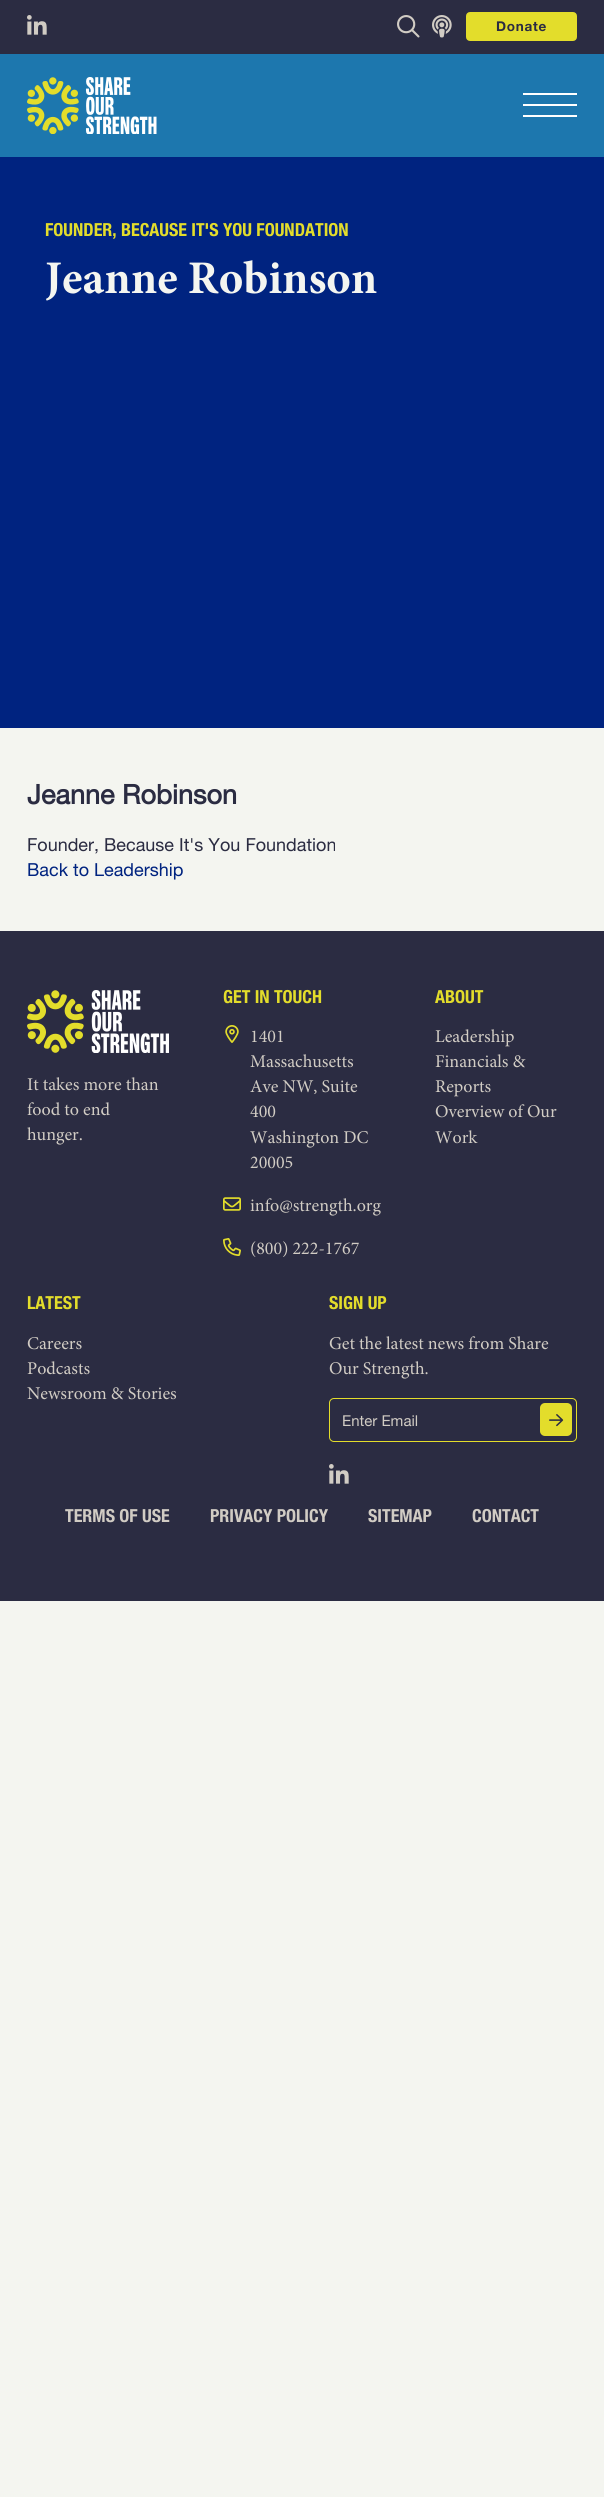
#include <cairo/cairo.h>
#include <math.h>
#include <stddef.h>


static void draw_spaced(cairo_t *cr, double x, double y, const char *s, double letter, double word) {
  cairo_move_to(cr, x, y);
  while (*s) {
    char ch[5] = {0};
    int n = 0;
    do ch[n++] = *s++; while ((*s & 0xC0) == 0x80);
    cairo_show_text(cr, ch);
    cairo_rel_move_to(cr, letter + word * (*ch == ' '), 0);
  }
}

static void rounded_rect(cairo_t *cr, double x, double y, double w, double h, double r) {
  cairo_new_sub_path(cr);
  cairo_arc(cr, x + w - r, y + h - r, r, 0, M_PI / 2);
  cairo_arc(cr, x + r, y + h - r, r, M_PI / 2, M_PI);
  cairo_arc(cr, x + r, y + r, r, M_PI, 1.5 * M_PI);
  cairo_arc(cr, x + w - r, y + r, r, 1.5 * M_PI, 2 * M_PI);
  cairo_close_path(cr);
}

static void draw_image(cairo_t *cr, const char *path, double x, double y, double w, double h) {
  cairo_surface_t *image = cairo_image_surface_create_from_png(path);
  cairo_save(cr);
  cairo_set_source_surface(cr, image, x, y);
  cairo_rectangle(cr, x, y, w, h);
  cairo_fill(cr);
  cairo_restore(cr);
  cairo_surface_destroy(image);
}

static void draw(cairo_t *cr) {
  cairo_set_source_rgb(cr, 244 / 255.0, 245 / 255.0, 240 / 255.0);
  cairo_paint(cr);
  cairo_set_source_rgb(cr, 43 / 255.0, 44 / 255.0, 66 / 255.0);
  cairo_rectangle(cr, 0, 0, 604, 54);
  cairo_fill(cr);
  draw_image(cr, "images/1.png", 27, 15, 20, 20);
  draw_image(cr, "images/2.png", 397, 15, 23, 23);
  draw_image(cr, "images/3.png", 432, 15, 20, 23);
  cairo_set_source_rgb(cr, 227 / 255.0, 221 / 255.0, 43 / 255.0);
  rounded_rect(cr, 467.5, 13.5, 108, 26, 2.5);
  cairo_fill_preserve(cr);
  cairo_set_line_width(cr, 3);
  cairo_stroke(cr);
  cairo_set_source_rgb(cr, 29 / 255.0, 119 / 255.0, 174 / 255.0);
  cairo_rectangle(cr, 0, 54, 604, 103);
  cairo_fill(cr);
  draw_image(cr, "images/4.png", 27, 77, 130, 57);
  cairo_set_source_rgb(cr, 1, 1, 1);
  cairo_rectangle(cr, 523, 93, 54, 2);
  cairo_fill(cr);
  cairo_rectangle(cr, 523, 104, 54, 2);
  cairo_fill(cr);
  cairo_rectangle(cr, 523, 115, 54, 2);
  cairo_fill(cr);
  cairo_set_source_rgb(cr, 0, 35 / 255.0, 128 / 255.0);
  cairo_rectangle(cr, 0, 157, 604, 571);
  cairo_fill(cr);
  cairo_set_source_rgb(cr, 43 / 255.0, 44 / 255.0, 66 / 255.0);
  cairo_rectangle(cr, 0, 931, 604, 670);
  cairo_fill(cr);
  draw_image(cr, "images/5.png", 27, 990, 142, 63);
  draw_image(cr, "images/6.png", 225, 1025, 14, 18);
  draw_image(cr, "images/7.png", 223, 1197, 18, 14);
  draw_image(cr, "images/8.png", 223, 1238, 18, 18);
  rounded_rect(cr, 329.5, 1398.5, 247, 43, 4.5);
  cairo_set_source_rgb(cr, 227 / 255.0, 221 / 255.0, 43 / 255.0);
  cairo_set_line_width(cr, 1);
  cairo_stroke(cr);
  rounded_rect(cr, 540, 1403, 32, 33, 5);
  cairo_fill(cr);
  draw_image(cr, "images/9.png", 549, 1414, 15, 13);
  draw_image(cr, "images/1.png", 329, 1464, 20, 20);
  cairo_select_font_face(cr, "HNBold", CAIRO_FONT_SLANT_NORMAL, CAIRO_FONT_WEIGHT_BOLD);
  cairo_set_font_size(cr, 13.5);
  cairo_set_source_rgb(cr, 43 / 255.0, 44 / 255.0, 66 / 255.0);
  draw_spaced(cr, 496, 31, "Donate", 0.75, 0);
  cairo_select_font_face(cr, "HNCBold", CAIRO_FONT_SLANT_NORMAL, CAIRO_FONT_WEIGHT_BOLD);
  cairo_set_font_size(cr, 18);
  cairo_set_source_rgb(cr, 227 / 255.0, 221 / 255.0, 43 / 255.0);
  cairo_move_to(cr, 45, 236);
  cairo_show_text(cr, "FOUNDER, BECAUSE IT'S YOU FOUNDATION");
  cairo_select_font_face(cr, "Minion", CAIRO_FONT_SLANT_NORMAL, CAIRO_FONT_WEIGHT_BOLD);
  cairo_set_font_size(cr, 46.75);
  cairo_set_source_rgb(cr, 244 / 255.0, 245 / 255.0, 240 / 255.0);
  cairo_move_to(cr, 45, 293);
  cairo_show_text(cr, "Jeanne Robinson");
  cairo_select_font_face(cr, "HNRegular", CAIRO_FONT_SLANT_NORMAL, CAIRO_FONT_WEIGHT_BOLD);
  cairo_set_font_size(cr, 27);
  cairo_set_source_rgb(cr, 43 / 255.0, 44 / 255.0, 66 / 255.0);
  cairo_move_to(cr, 27, 804);
  cairo_show_text(cr, "Jeanne Robinson");
  cairo_select_font_face(cr, "HNRegular", CAIRO_FONT_SLANT_NORMAL, CAIRO_FONT_WEIGHT_NORMAL);
  cairo_set_font_size(cr, 18);
  cairo_move_to(cr, 27, 851);
  cairo_show_text(cr, "Founder, Because It's You Foundation");
  cairo_set_source_rgb(cr, 0, 35 / 255.0, 128 / 255.0);
  cairo_move_to(cr, 27, 876);
  cairo_show_text(cr, "Back to Leadership");
  cairo_select_font_face(cr, "Minion", CAIRO_FONT_SLANT_NORMAL, CAIRO_FONT_WEIGHT_NORMAL);
  cairo_set_source_rgb(cr, 209 / 255.0, 204 / 255.0, 196 / 255.0);
  cairo_move_to(cr, 27, 1090);
  cairo_show_text(cr, "It takes more than");
  cairo_move_to(cr, 27, 1115);
  cairo_show_text(cr, "food to end");
  cairo_move_to(cr, 27, 1140);
  cairo_show_text(cr, "hunger.");
  cairo_select_font_face(cr, "HNCBold", CAIRO_FONT_SLANT_NORMAL, CAIRO_FONT_WEIGHT_BOLD);
  cairo_set_source_rgb(cr, 227 / 255.0, 221 / 255.0, 43 / 255.0);
  cairo_move_to(cr, 223, 1003);
  cairo_show_text(cr, "GET IN TOUCH");
  cairo_select_font_face(cr, "Minion", CAIRO_FONT_SLANT_NORMAL, CAIRO_FONT_WEIGHT_NORMAL);
  cairo_set_source_rgb(cr, 209 / 255.0, 204 / 255.0, 196 / 255.0);
  cairo_move_to(cr, 250, 1042);
  cairo_show_text(cr, "1401");
  cairo_move_to(cr, 250, 1067);
  cairo_show_text(cr, "Massachusetts");
  cairo_move_to(cr, 250, 1092);
  cairo_show_text(cr, "Ave NW, Suite");
  cairo_move_to(cr, 250, 1117);
  cairo_show_text(cr, "400");
  cairo_move_to(cr, 250, 1143);
  cairo_show_text(cr, "Washington DC");
  cairo_move_to(cr, 250, 1168);
  cairo_show_text(cr, "20005");
  cairo_move_to(cr, 250, 1211);
  cairo_show_text(cr, "info@strength.org");
  cairo_move_to(cr, 250, 1254);
  cairo_show_text(cr, "(800) 222-1767");
  cairo_select_font_face(cr, "HNCBold", CAIRO_FONT_SLANT_NORMAL, CAIRO_FONT_WEIGHT_BOLD);
  cairo_set_source_rgb(cr, 227 / 255.0, 221 / 255.0, 43 / 255.0);
  cairo_move_to(cr, 435, 1003);
  cairo_show_text(cr, "ABOUT");
  cairo_select_font_face(cr, "Minion", CAIRO_FONT_SLANT_NORMAL, CAIRO_FONT_WEIGHT_NORMAL);
  cairo_set_source_rgb(cr, 209 / 255.0, 204 / 255.0, 196 / 255.0);
  cairo_move_to(cr, 435, 1042);
  cairo_show_text(cr, "Leadership");
  cairo_move_to(cr, 435, 1067);
  cairo_show_text(cr, "Financials &");
  cairo_move_to(cr, 435, 1092);
  cairo_show_text(cr, "Reports");
  cairo_move_to(cr, 435, 1117);
  cairo_show_text(cr, "Overview of Our");
  cairo_move_to(cr, 435, 1143);
  cairo_show_text(cr, "Work");
  cairo_select_font_face(cr, "HNCBold", CAIRO_FONT_SLANT_NORMAL, CAIRO_FONT_WEIGHT_BOLD);
  cairo_set_source_rgb(cr, 227 / 255.0, 221 / 255.0, 43 / 255.0);
  cairo_move_to(cr, 27, 1309);
  cairo_show_text(cr, "LATEST");
  cairo_select_font_face(cr, "Minion", CAIRO_FONT_SLANT_NORMAL, CAIRO_FONT_WEIGHT_NORMAL);
  cairo_set_source_rgb(cr, 209 / 255.0, 204 / 255.0, 196 / 255.0);
  cairo_move_to(cr, 27, 1349);
  cairo_show_text(cr, "Careers");
  cairo_move_to(cr, 27, 1374);
  cairo_show_text(cr, "Podcasts");
  cairo_move_to(cr, 27, 1399);
  cairo_show_text(cr, "Newsroom & Stories");
  cairo_select_font_face(cr, "HNCBold", CAIRO_FONT_SLANT_NORMAL, CAIRO_FONT_WEIGHT_BOLD);
  cairo_set_source_rgb(cr, 227 / 255.0, 221 / 255.0, 43 / 255.0);
  cairo_move_to(cr, 329, 1309);
  cairo_show_text(cr, "SIGN UP");
  cairo_select_font_face(cr, "Minion", CAIRO_FONT_SLANT_NORMAL, CAIRO_FONT_WEIGHT_NORMAL);
  cairo_set_source_rgb(cr, 209 / 255.0, 204 / 255.0, 196 / 255.0);
  cairo_move_to(cr, 329, 1349);
  cairo_show_text(cr, "Get the latest news from Share");
  cairo_move_to(cr, 329, 1374);
  cairo_show_text(cr, "Our Strength.");
  cairo_select_font_face(cr, "HNRegular", CAIRO_FONT_SLANT_NORMAL, CAIRO_FONT_WEIGHT_NORMAL);
  cairo_set_font_size(cr, 15);
  cairo_move_to(cr, 342, 1426);
  cairo_show_text(cr, "Enter Email");
  cairo_select_font_face(cr, "HNCBold", CAIRO_FONT_SLANT_NORMAL, CAIRO_FONT_WEIGHT_BOLD);
  cairo_set_font_size(cr, 18);
  cairo_move_to(cr, 65, 1522);
  cairo_show_text(cr, "TERMS OF USE");
  cairo_move_to(cr, 210, 1522);
  cairo_show_text(cr, "PRIVACY POLICY");
  cairo_move_to(cr, 368, 1522);
  cairo_show_text(cr, "SITEMAP");
  cairo_move_to(cr, 472, 1522);
  cairo_show_text(cr, "CONTACT");
}

int main(void) {
  cairo_surface_t *surface = cairo_image_surface_create(CAIRO_FORMAT_RGB24, 604, 2497);
  cairo_t *cr = cairo_create(surface);
  cairo_font_options_t *options = cairo_font_options_create();
  cairo_font_options_set_hint_metrics(options, CAIRO_HINT_METRICS_OFF);
  cairo_font_options_set_hint_style(options, CAIRO_HINT_STYLE_NONE);
  cairo_set_font_options(cr, options);
  cairo_set_miter_limit(cr, 4);
  draw(cr);
  cairo_surface_write_to_png(surface, "out.png");
  cairo_font_options_destroy(options);
  cairo_destroy(cr);
  cairo_surface_destroy(surface);
  return 0;
}
